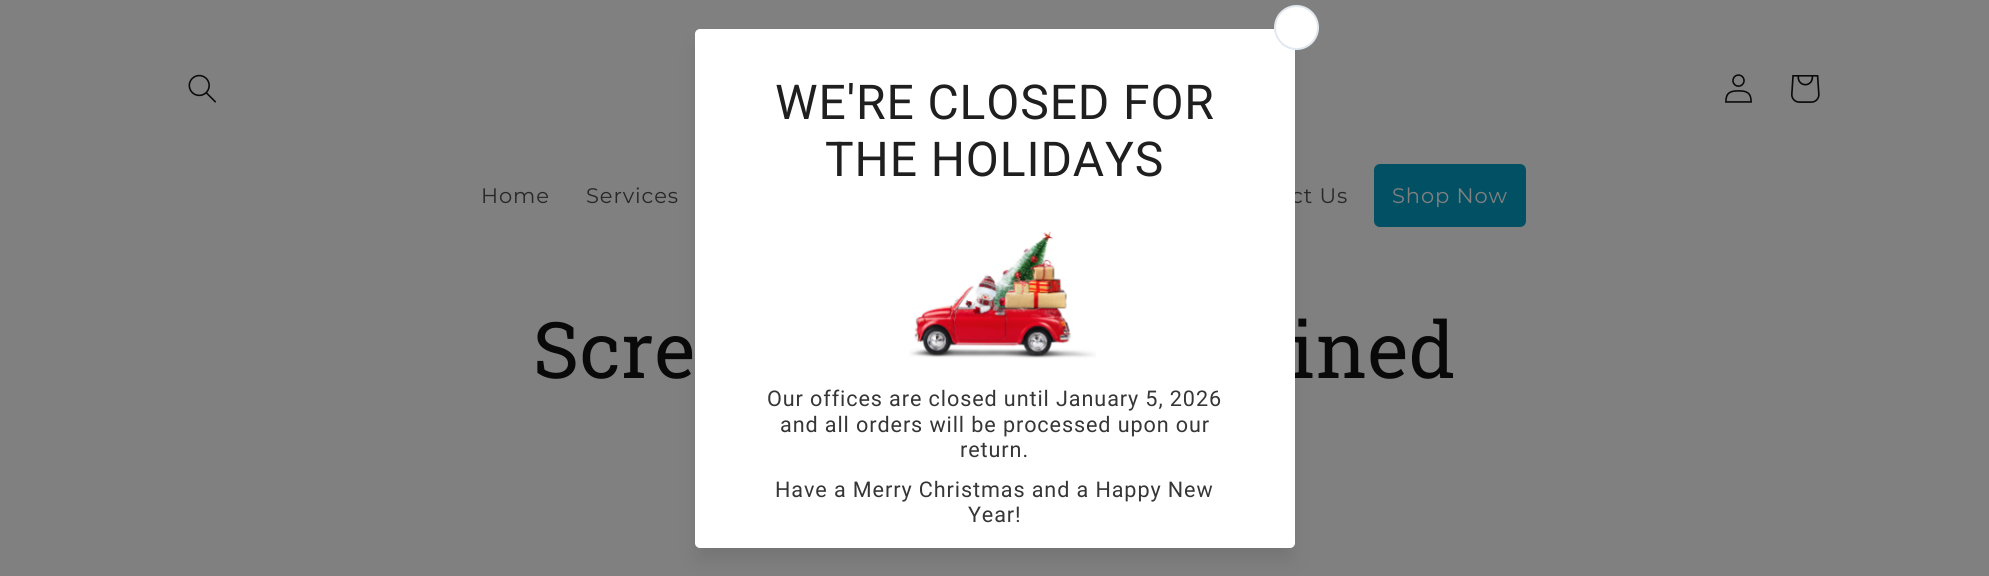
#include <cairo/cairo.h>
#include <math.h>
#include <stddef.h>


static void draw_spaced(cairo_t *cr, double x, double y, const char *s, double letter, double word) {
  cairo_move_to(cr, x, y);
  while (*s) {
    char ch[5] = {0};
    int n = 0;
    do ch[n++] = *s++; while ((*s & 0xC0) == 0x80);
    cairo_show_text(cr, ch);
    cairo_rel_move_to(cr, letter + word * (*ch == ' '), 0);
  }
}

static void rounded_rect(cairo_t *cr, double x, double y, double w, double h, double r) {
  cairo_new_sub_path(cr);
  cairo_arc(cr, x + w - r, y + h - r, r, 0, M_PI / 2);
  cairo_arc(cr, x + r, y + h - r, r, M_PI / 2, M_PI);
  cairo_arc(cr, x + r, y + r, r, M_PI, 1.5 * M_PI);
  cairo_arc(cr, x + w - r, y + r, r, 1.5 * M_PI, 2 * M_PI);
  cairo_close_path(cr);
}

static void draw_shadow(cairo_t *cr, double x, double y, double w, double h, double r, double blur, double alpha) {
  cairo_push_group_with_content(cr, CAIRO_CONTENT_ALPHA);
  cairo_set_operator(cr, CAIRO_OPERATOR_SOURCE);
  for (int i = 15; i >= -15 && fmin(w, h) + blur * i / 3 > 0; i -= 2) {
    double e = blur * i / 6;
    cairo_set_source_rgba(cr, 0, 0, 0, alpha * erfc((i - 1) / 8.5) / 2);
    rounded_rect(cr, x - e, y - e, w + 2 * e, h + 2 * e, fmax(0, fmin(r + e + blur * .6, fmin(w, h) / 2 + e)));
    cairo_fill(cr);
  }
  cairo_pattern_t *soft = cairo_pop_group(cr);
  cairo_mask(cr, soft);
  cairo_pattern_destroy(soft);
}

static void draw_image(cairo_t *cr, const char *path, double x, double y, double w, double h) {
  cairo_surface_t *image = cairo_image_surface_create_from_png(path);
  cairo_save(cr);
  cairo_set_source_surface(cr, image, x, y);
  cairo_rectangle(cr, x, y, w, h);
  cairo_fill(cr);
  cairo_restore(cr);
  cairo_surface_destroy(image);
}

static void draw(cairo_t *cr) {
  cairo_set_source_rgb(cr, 128 / 255.0, 128 / 255.0, 128 / 255.0);
  cairo_paint(cr);
  cairo_set_source_rgb(cr, 0, 0, 0);
  draw_shadow(cr, 699, 48, 591, 510, 0, 11, 0.1);
  draw_image(cr, "images/2.png", 188, 74, 28, 29);
  draw_image(cr, "images/3.png", 1725, 74, 27, 29);
  draw_image(cr, "images/4.png", 1791, 75, 29, 28);
  cairo_set_source_rgb(cr, 2 / 255.0, 80 / 255.0, 100 / 255.0);
  rounded_rect(cr, 1374, 164, 152, 63, 6);
  cairo_fill(cr);
  cairo_select_font_face(cr, "Montserrat", CAIRO_FONT_SLANT_NORMAL, CAIRO_FONT_WEIGHT_NORMAL);
  cairo_set_font_size(cr, 21);
  cairo_set_source_rgb(cr, 39 / 255.0, 39 / 255.0, 39 / 255.0);
  draw_spaced(cr, 481, 203, "Home", 0.9, 0);
  draw_spaced(cr, 586, 203, "Services", 0.9, 0);
  draw_spaced(cr, 1291, 203, "ct Us", 0.9, 0);
  cairo_set_source_rgb(cr, 128 / 255.0, 128 / 255.0, 128 / 255.0);
  draw_spaced(cr, 1392, 203, "Shop Now", 0.9, 0);
  cairo_select_font_face(cr, "Roboto Slab", CAIRO_FONT_SLANT_NORMAL, CAIRO_FONT_WEIGHT_NORMAL);
  cairo_set_font_size(cr, 78);
  cairo_set_source_rgb(cr, 9 / 255.0, 9 / 255.0, 9 / 255.0);
  draw_spaced(cr, 533, 378, "Scre", 0.9, 0);
  draw_spaced(cr, 1290, 378, "ined", 0.9, 0);
  cairo_set_source_rgb(cr, 1, 1, 1);
  rounded_rect(cr, 695, 29, 600, 519, 5);
  cairo_fill(cr);
  cairo_arc(cr, 1296.5, 27.5, 21.5, 0, 2 * M_PI);
  cairo_fill_preserve(cr);
  cairo_set_source_rgb(cr, 226 / 255.0, 232 / 255.0, 240 / 255.0);
  cairo_stroke(cr);
  cairo_select_font_face(cr, "Roboto", CAIRO_FONT_SLANT_NORMAL, CAIRO_FONT_WEIGHT_NORMAL);
  cairo_set_font_size(cr, 21.6);
  cairo_set_source_rgb(cr, 54 / 255.0, 54 / 255.0, 54 / 255.0);
  draw_spaced(cr, 968, 522, "Year!", 0.9, 0);
  draw_spaced(cr, 775, 497, "Have a Merry Christmas and a Happy New", 0.9, 0);
  draw_spaced(cr, 960, 457, "return.", 0.9, 0);
  draw_spaced(cr, 780, 432, "and all orders will be processed upon our", 0.9, 0);
  draw_spaced(cr, 767, 406, "Our offices are closed until January 5, 2026", 0.9, 0);
  draw_image(cr, "images/1.png", 909, 231, 187, 128);
  cairo_set_font_size(cr, 48);
  cairo_set_source_rgb(cr, 31 / 255.0, 31 / 255.0, 31 / 255.0);
  draw_spaced(cr, 825, 176, "THE HOLIDAYS", 0.9, 0);
  draw_spaced(cr, 775, 119, "WE'RE CLOSED FOR", 0.9, 0);
}

int main(void) {
  cairo_surface_t *surface = cairo_image_surface_create(CAIRO_FORMAT_RGB24, 1989, 576);
  cairo_t *cr = cairo_create(surface);
  cairo_font_options_t *options = cairo_font_options_create();
  cairo_font_options_set_hint_metrics(options, CAIRO_HINT_METRICS_OFF);
  cairo_font_options_set_hint_style(options, CAIRO_HINT_STYLE_NONE);
  cairo_set_font_options(cr, options);
  cairo_set_miter_limit(cr, 4);
  draw(cr);
  cairo_surface_write_to_png(surface, "out.png");
  cairo_font_options_destroy(options);
  cairo_destroy(cr);
  cairo_surface_destroy(surface);
  return 0;
}
